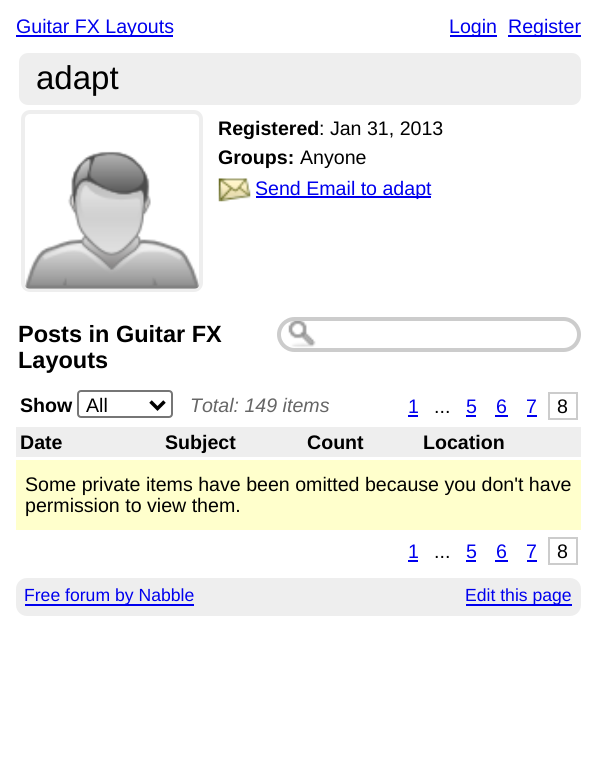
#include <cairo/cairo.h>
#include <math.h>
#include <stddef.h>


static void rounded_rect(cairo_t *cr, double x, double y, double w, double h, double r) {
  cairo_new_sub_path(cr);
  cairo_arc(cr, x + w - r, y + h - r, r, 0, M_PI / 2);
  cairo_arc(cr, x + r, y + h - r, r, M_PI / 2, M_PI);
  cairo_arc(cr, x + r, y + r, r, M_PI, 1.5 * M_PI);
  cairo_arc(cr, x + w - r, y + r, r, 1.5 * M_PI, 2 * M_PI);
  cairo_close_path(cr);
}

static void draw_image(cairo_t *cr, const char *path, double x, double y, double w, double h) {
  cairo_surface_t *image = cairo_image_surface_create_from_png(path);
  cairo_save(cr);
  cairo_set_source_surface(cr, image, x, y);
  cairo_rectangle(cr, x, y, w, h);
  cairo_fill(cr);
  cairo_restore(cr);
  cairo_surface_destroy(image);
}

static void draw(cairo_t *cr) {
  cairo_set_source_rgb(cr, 1, 1, 1);
  cairo_paint(cr);
  cairo_set_source_rgb(cr, 0, 0, 238 / 255.0);
  cairo_rectangle(cr, 16, 35, 157, 2);
  cairo_fill(cr);
  cairo_rectangle(cr, 450, 35, 47, 2);
  cairo_fill(cr);
  cairo_rectangle(cr, 508, 35, 73, 2);
  cairo_fill(cr);
  cairo_set_source_rgb(cr, 238 / 255.0, 238 / 255.0, 238 / 255.0);
  rounded_rect(cr, 19, 53, 562, 52, 9);
  cairo_fill(cr);
  rounded_rect(cr, 23, 112, 178, 178, 7);
  cairo_set_line_width(cr, 4);
  cairo_stroke(cr);
  draw_image(cr, "images/1.png", 25, 151, 175, 138);
  draw_image(cr, "images/2.png", 218, 178, 33, 24);
  cairo_set_source_rgb(cr, 0, 0, 238 / 255.0);
  cairo_rectangle(cr, 256, 196, 175, 2);
  cairo_fill(cr);
  draw_image(cr, "images/3.png", 288, 321, 28, 27);
  rounded_rect(cr, 279, 319, 300, 31, 15.5);
  cairo_set_source_rgb(cr, 204 / 255.0, 204 / 255.0, 204 / 255.0);
  cairo_stroke(cr);
  rounded_rect(cr, 78, 391, 94, 26, 3);
  cairo_set_source_rgb(cr, 118 / 255.0, 118 / 255.0, 118 / 255.0);
  cairo_set_line_width(cr, 2);
  cairo_stroke(cr);
  cairo_new_path(cr);
  cairo_move_to(cr, 150.5, 401.5);
  cairo_line_to(cr, 157.5, 408.5);
  cairo_line_to(cr, 164.5, 401.5);
  cairo_set_source_rgb(cr, 0, 0, 0);
  cairo_set_line_width(cr, 3.5);
  cairo_stroke(cr);
  cairo_set_source_rgb(cr, 0, 0, 238 / 255.0);
  cairo_rectangle(cr, 408, 415, 10, 2);
  cairo_fill(cr);
  cairo_rectangle(cr, 466, 415, 10, 2);
  cairo_fill(cr);
  cairo_rectangle(cr, 495, 415, 13, 2);
  cairo_fill(cr);
  cairo_rectangle(cr, 527, 415, 10, 2);
  cairo_fill(cr);
  cairo_rectangle(cr, 549, 393, 28, 26);
  cairo_set_source_rgb(cr, 204 / 255.0, 204 / 255.0, 204 / 255.0);
  cairo_set_line_width(cr, 2);
  cairo_stroke(cr);
  cairo_set_source_rgb(cr, 238 / 255.0, 238 / 255.0, 238 / 255.0);
  cairo_rectangle(cr, 16, 427, 565, 30);
  cairo_fill(cr);
  cairo_set_source_rgb(cr, 1, 1, 204 / 255.0);
  cairo_rectangle(cr, 16, 460, 565, 70);
  cairo_fill(cr);
  cairo_set_source_rgb(cr, 0, 0, 238 / 255.0);
  cairo_rectangle(cr, 408, 560, 10, 2);
  cairo_fill(cr);
  cairo_rectangle(cr, 466, 560, 10, 2);
  cairo_fill(cr);
  cairo_rectangle(cr, 495, 560, 13, 2);
  cairo_fill(cr);
  cairo_rectangle(cr, 527, 560, 10, 2);
  cairo_fill(cr);
  cairo_rectangle(cr, 549, 538, 28, 26);
  cairo_set_source_rgb(cr, 204 / 255.0, 204 / 255.0, 204 / 255.0);
  cairo_stroke(cr);
  cairo_set_source_rgb(cr, 238 / 255.0, 238 / 255.0, 238 / 255.0);
  rounded_rect(cr, 16, 578, 565, 38, 11);
  cairo_fill(cr);
  cairo_set_source_rgb(cr, 0, 0, 238 / 255.0);
  cairo_rectangle(cr, 25, 604, 169, 2);
  cairo_fill(cr);
  cairo_rectangle(cr, 466, 604, 106, 2);
  cairo_fill(cr);
  cairo_select_font_face(cr, "Liberation Sans", CAIRO_FONT_SLANT_NORMAL, CAIRO_FONT_WEIGHT_NORMAL);
  cairo_set_font_size(cr, 19.6);
  cairo_move_to(cr, 16, 33);
  cairo_show_text(cr, "Guitar FX Layouts");
  cairo_move_to(cr, 449, 33);
  cairo_show_text(cr, "Login");
  cairo_move_to(cr, 508, 33);
  cairo_show_text(cr, "Register");
  cairo_set_font_size(cr, 33);
  cairo_set_source_rgb(cr, 0, 0, 0);
  cairo_move_to(cr, 36, 89);
  cairo_show_text(cr, "adapt");
  cairo_select_font_face(cr, "Liberation Sans", CAIRO_FONT_SLANT_NORMAL, CAIRO_FONT_WEIGHT_BOLD);
  cairo_set_font_size(cr, 19.6);
  cairo_move_to(cr, 218, 135);
  cairo_show_text(cr, "Registered");
  cairo_select_font_face(cr, "Liberation Sans", CAIRO_FONT_SLANT_NORMAL, CAIRO_FONT_WEIGHT_NORMAL);
  cairo_move_to(cr, 319, 135);
  cairo_show_text(cr, ": Jan 31, 2013");
  cairo_select_font_face(cr, "Liberation Sans", CAIRO_FONT_SLANT_NORMAL, CAIRO_FONT_WEIGHT_BOLD);
  cairo_move_to(cr, 218, 164);
  cairo_show_text(cr, "Groups:");
  cairo_select_font_face(cr, "Liberation Sans", CAIRO_FONT_SLANT_NORMAL, CAIRO_FONT_WEIGHT_NORMAL);
  cairo_move_to(cr, 300, 164);
  cairo_show_text(cr, "Anyone");
  cairo_set_source_rgb(cr, 0, 0, 238 / 255.0);
  cairo_move_to(cr, 255, 195);
  cairo_show_text(cr, "Send Email to adapt");
  cairo_select_font_face(cr, "Liberation Sans", CAIRO_FONT_SLANT_NORMAL, CAIRO_FONT_WEIGHT_BOLD);
  cairo_set_font_size(cr, 23.5);
  cairo_set_source_rgb(cr, 0, 0, 0);
  cairo_move_to(cr, 18, 342);
  cairo_show_text(cr, "Posts in Guitar FX");
  cairo_move_to(cr, 18, 368);
  cairo_show_text(cr, "Layouts");
  cairo_set_font_size(cr, 19.6);
  cairo_move_to(cr, 20, 412);
  cairo_show_text(cr, "Show");
  cairo_select_font_face(cr, "Liberation Sans", CAIRO_FONT_SLANT_NORMAL, CAIRO_FONT_WEIGHT_NORMAL);
  cairo_move_to(cr, 86, 412);
  cairo_show_text(cr, "All");
  cairo_select_font_face(cr, "Liberation Sans", CAIRO_FONT_SLANT_ITALIC, CAIRO_FONT_WEIGHT_NORMAL);
  cairo_set_source_rgb(cr, 102 / 255.0, 102 / 255.0, 102 / 255.0);
  cairo_move_to(cr, 190, 412);
  cairo_show_text(cr, "Total: 149 items");
  cairo_select_font_face(cr, "Liberation Sans", CAIRO_FONT_SLANT_NORMAL, CAIRO_FONT_WEIGHT_NORMAL);
  cairo_set_source_rgb(cr, 0, 0, 238 / 255.0);
  cairo_move_to(cr, 408, 413);
  cairo_show_text(cr, "1");
  cairo_set_source_rgb(cr, 0, 0, 0);
  cairo_move_to(cr, 434, 413);
  cairo_show_text(cr, "...");
  cairo_set_source_rgb(cr, 0, 0, 238 / 255.0);
  cairo_move_to(cr, 466, 413);
  cairo_show_text(cr, "5");
  cairo_move_to(cr, 496, 413);
  cairo_show_text(cr, "6");
  cairo_move_to(cr, 526, 413);
  cairo_show_text(cr, "7");
  cairo_set_source_rgb(cr, 0, 0, 0);
  cairo_move_to(cr, 557, 413);
  cairo_show_text(cr, "8");
  cairo_select_font_face(cr, "Liberation Sans", CAIRO_FONT_SLANT_NORMAL, CAIRO_FONT_WEIGHT_BOLD);
  cairo_move_to(cr, 20, 449);
  cairo_show_text(cr, "Date");
  cairo_move_to(cr, 165, 449);
  cairo_show_text(cr, "Subject");
  cairo_move_to(cr, 307, 449);
  cairo_show_text(cr, "Count");
  cairo_move_to(cr, 423, 449);
  cairo_show_text(cr, "Location");
  cairo_select_font_face(cr, "Liberation Sans", CAIRO_FONT_SLANT_NORMAL, CAIRO_FONT_WEIGHT_NORMAL);
  cairo_move_to(cr, 25, 491);
  cairo_show_text(cr, "Some private items have been omitted because you don't have");
  cairo_move_to(cr, 25, 512);
  cairo_show_text(cr, "permission to view them.");
  cairo_set_source_rgb(cr, 0, 0, 238 / 255.0);
  cairo_move_to(cr, 408, 558);
  cairo_show_text(cr, "1");
  cairo_set_source_rgb(cr, 0, 0, 0);
  cairo_move_to(cr, 434, 558);
  cairo_show_text(cr, "...");
  cairo_set_source_rgb(cr, 0, 0, 238 / 255.0);
  cairo_move_to(cr, 466, 558);
  cairo_show_text(cr, "5");
  cairo_move_to(cr, 496, 558);
  cairo_show_text(cr, "6");
  cairo_move_to(cr, 526, 558);
  cairo_show_text(cr, "7");
  cairo_set_source_rgb(cr, 0, 0, 0);
  cairo_move_to(cr, 557, 558);
  cairo_show_text(cr, "8");
  cairo_set_font_size(cr, 17.6);
  cairo_set_source_rgb(cr, 0, 0, 238 / 255.0);
  cairo_move_to(cr, 24, 601);
  cairo_show_text(cr, "Free forum by Nabble");
  cairo_move_to(cr, 465, 601);
  cairo_show_text(cr, "Edit this page");
}

int main(void) {
  cairo_surface_t *surface = cairo_image_surface_create(CAIRO_FORMAT_RGB24, 596, 758);
  cairo_t *cr = cairo_create(surface);
  cairo_font_options_t *options = cairo_font_options_create();
  cairo_font_options_set_hint_metrics(options, CAIRO_HINT_METRICS_OFF);
  cairo_font_options_set_hint_style(options, CAIRO_HINT_STYLE_NONE);
  cairo_set_font_options(cr, options);
  cairo_set_miter_limit(cr, 4);
  draw(cr);
  cairo_surface_write_to_png(surface, "out.png");
  cairo_font_options_destroy(options);
  cairo_destroy(cr);
  cairo_surface_destroy(surface);
  return 0;
}
